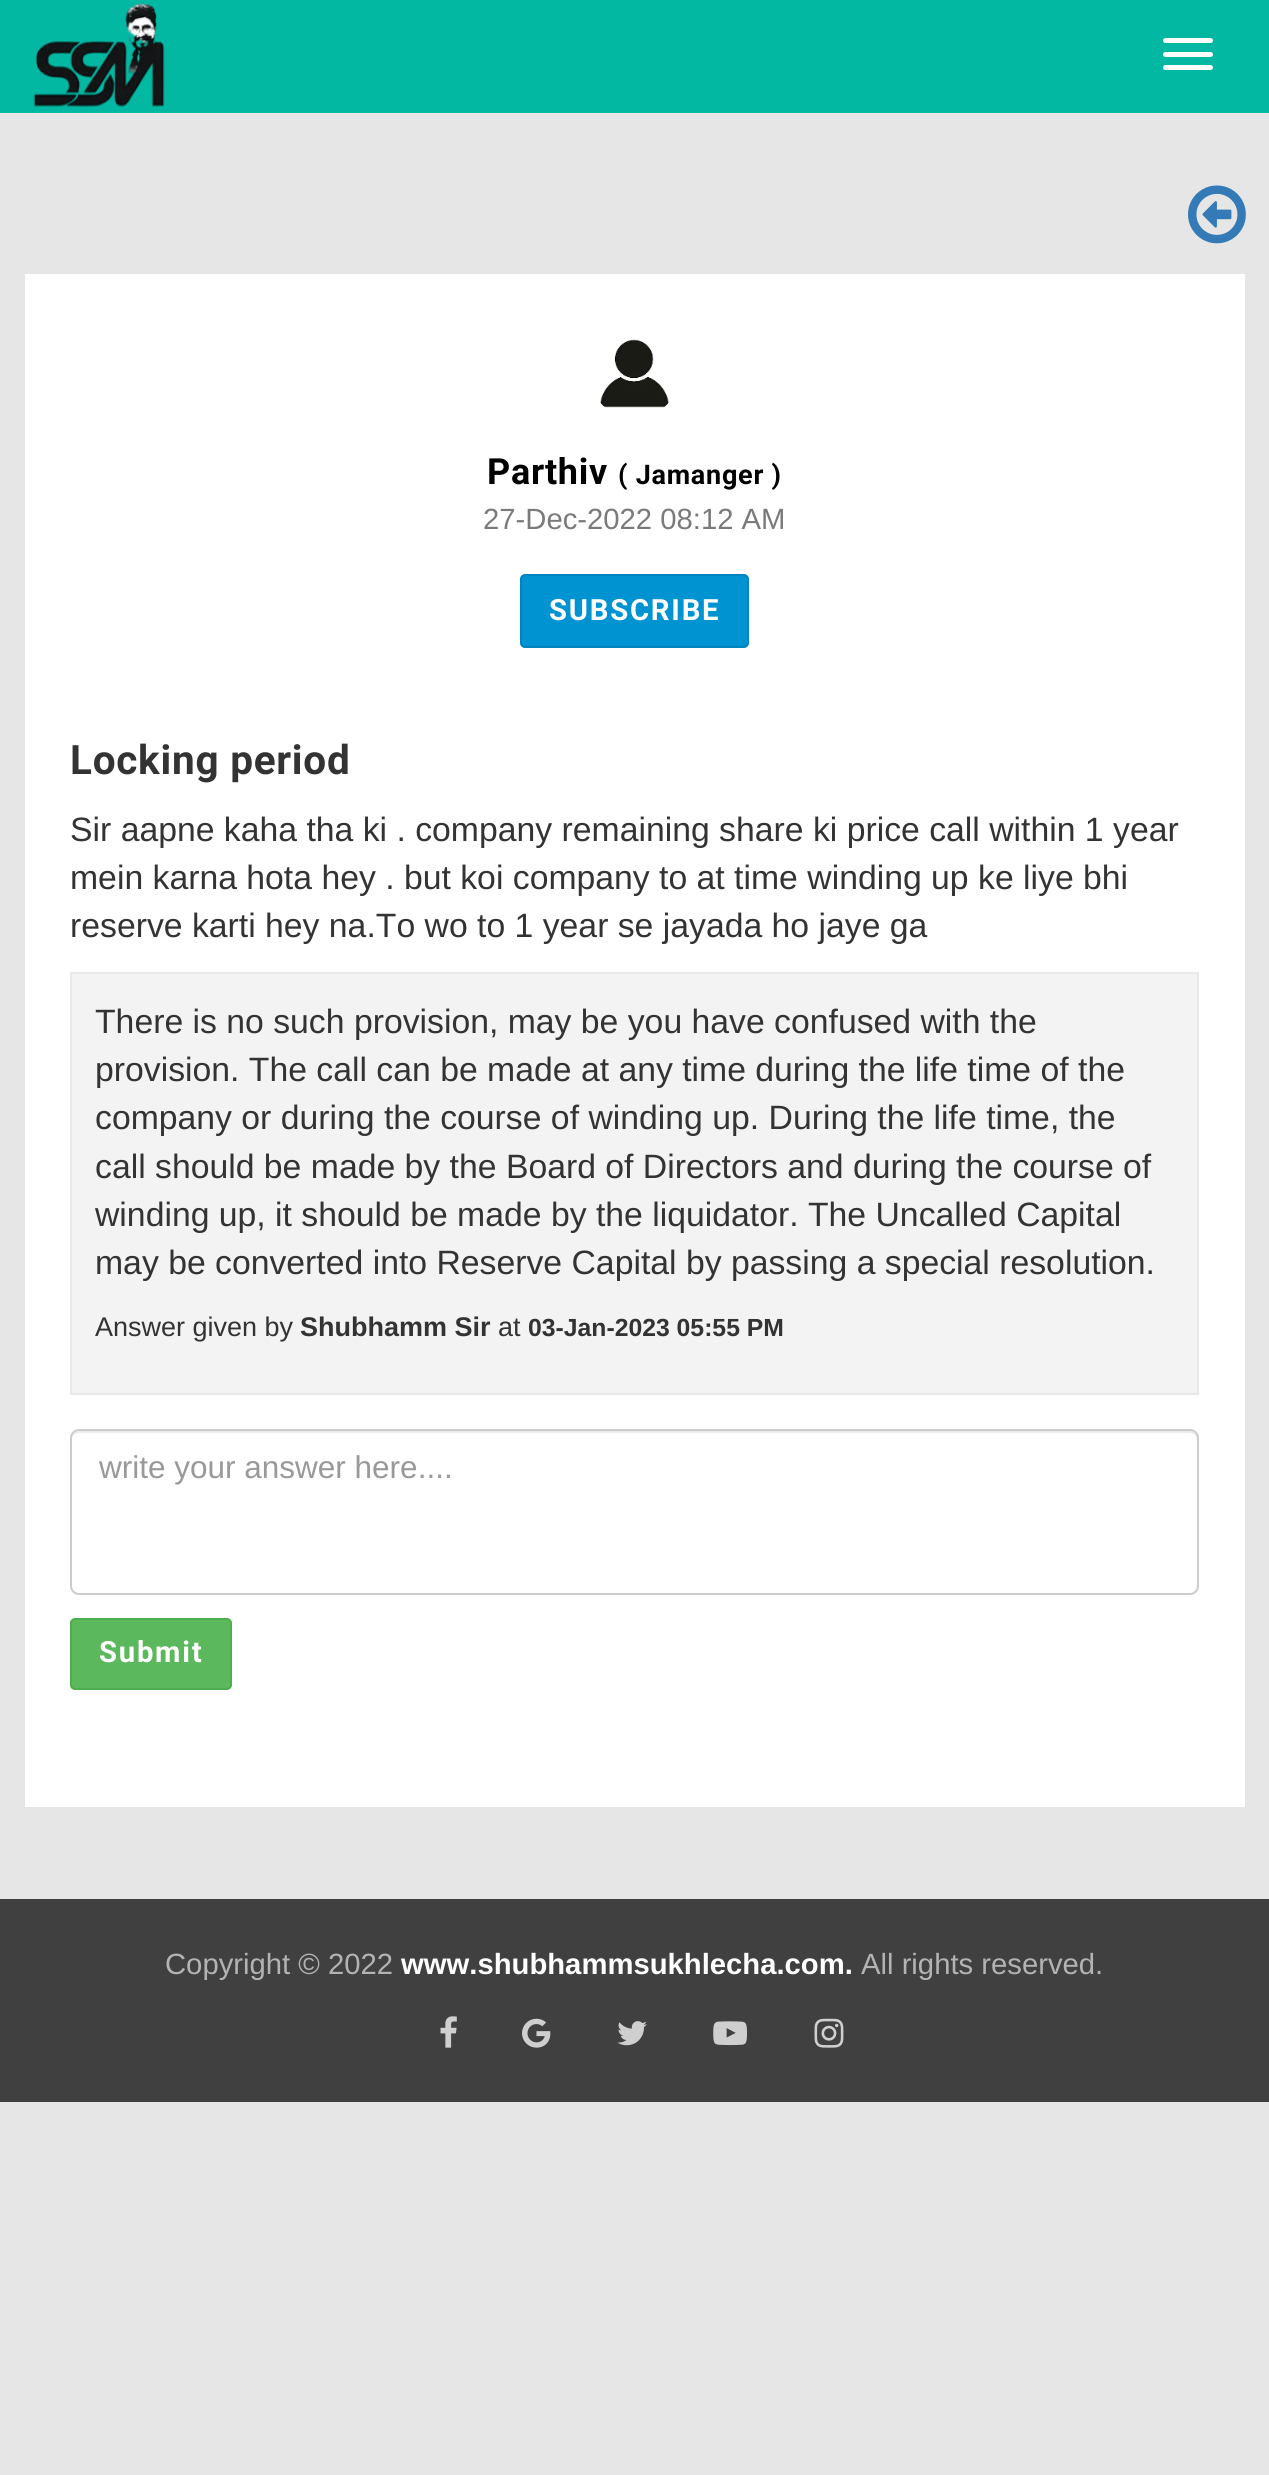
#include <cairo/cairo.h>
#include <math.h>
#include <stddef.h>


static void draw_spaced(cairo_t *cr, double x, double y, const char *s, double letter, double word) {
  cairo_move_to(cr, x, y);
  while (*s) {
    char ch[5] = {0};
    int n = 0;
    do ch[n++] = *s++; while ((*s & 0xC0) == 0x80);
    cairo_show_text(cr, ch);
    cairo_rel_move_to(cr, letter + word * (*ch == ' '), 0);
  }
}

static void rounded_rect(cairo_t *cr, double x, double y, double w, double h, double r) {
  cairo_new_sub_path(cr);
  cairo_arc(cr, x + w - r, y + h - r, r, 0, M_PI / 2);
  cairo_arc(cr, x + r, y + h - r, r, M_PI / 2, M_PI);
  cairo_arc(cr, x + r, y + r, r, M_PI, 1.5 * M_PI);
  cairo_arc(cr, x + w - r, y + r, r, 1.5 * M_PI, 2 * M_PI);
  cairo_close_path(cr);
}

static void draw_image(cairo_t *cr, const char *path, double x, double y, double w, double h) {
  cairo_surface_t *image = cairo_image_surface_create_from_png(path);
  cairo_save(cr);
  cairo_set_source_surface(cr, image, x, y);
  cairo_rectangle(cr, x, y, w, h);
  cairo_fill(cr);
  cairo_restore(cr);
  cairo_surface_destroy(image);
}

static void draw(cairo_t *cr) {
  cairo_set_source_rgb(cr, 230 / 255.0, 230 / 255.0, 230 / 255.0);
  cairo_paint(cr);
  cairo_set_source_rgb(cr, 2 / 255.0, 184 / 255.0, 162 / 255.0);
  cairo_rectangle(cr, 0, 0, 1269, 113);
  cairo_fill(cr);
  draw_image(cr, "images/1.png", 33, 3, 132, 104);
  cairo_set_source_rgb(cr, 1, 1, 1);
  rounded_rect(cr, 1163, 38, 50, 5, 2.5);
  cairo_fill(cr);
  rounded_rect(cr, 1163, 52, 50, 5, 2.5);
  cairo_fill(cr);
  rounded_rect(cr, 1163, 65, 50, 5, 2.5);
  cairo_fill(cr);
  draw_image(cr, "images/2.png", 1188, 185, 58, 59);
  cairo_rectangle(cr, 25, 274, 1220, 1533);
  cairo_fill(cr);
  draw_image(cr, "images/3.png", 600, 339, 69, 69);
  cairo_set_source_rgb(cr, 0, 147 / 255.0, 210 / 255.0);
  rounded_rect(cr, 521, 575, 227, 72, 4);
  cairo_fill_preserve(cr);
  cairo_set_source_rgb(cr, 0, 132 / 255.0, 189 / 255.0);
  cairo_stroke(cr);
  cairo_set_source_rgb(cr, 243 / 255.0, 243 / 255.0, 243 / 255.0);
  cairo_rectangle(cr, 71, 973, 1127, 421);
  cairo_fill_preserve(cr);
  cairo_set_source_rgb(cr, 232 / 255.0, 232 / 255.0, 232 / 255.0);
  cairo_stroke(cr);
  cairo_set_source_rgb(cr, 236 / 255.0, 236 / 255.0, 236 / 255.0);
  cairo_new_path(cr);
  cairo_move_to(cr, 79, 1433);
  cairo_line_to(cr, 1190, 1433);
  cairo_curve_to(cr, 1194, 1433, 1197, 1436, 1197, 1440);
  cairo_line_to(cr, 1197, 1438);
  cairo_curve_to(cr, 1197, 1434, 1194, 1431, 1190, 1431);
  cairo_line_to(cr, 79, 1431);
  cairo_curve_to(cr, 75, 1431, 72, 1434, 72, 1438);
  cairo_line_to(cr, 72, 1440);
  cairo_curve_to(cr, 72, 1436, 75, 1433, 79, 1433);
  cairo_close_path(cr);
  cairo_fill(cr);
  rounded_rect(cr, 71, 1430, 1127, 164, 8);
  cairo_set_source_rgb(cr, 204 / 255.0, 204 / 255.0, 204 / 255.0);
  cairo_stroke(cr);
  cairo_set_source_rgb(cr, 92 / 255.0, 184 / 255.0, 92 / 255.0);
  rounded_rect(cr, 71, 1619, 160, 70, 4);
  cairo_fill_preserve(cr);
  cairo_set_source_rgb(cr, 76 / 255.0, 174 / 255.0, 76 / 255.0);
  cairo_stroke(cr);
  cairo_set_source_rgb(cr, 64 / 255.0, 64 / 255.0, 64 / 255.0);
  cairo_rectangle(cr, 0, 1899, 1269, 203);
  cairo_fill(cr);
  draw_image(cr, "images/4.png", 440, 2016, 17, 32);
  draw_image(cr, "images/5.png", 522, 2018, 29, 30);
  draw_image(cr, "images/6.png", 617, 2021, 30, 25);
  draw_image(cr, "images/7.png", 713, 2021, 34, 25);
  draw_image(cr, "images/8.png", 814, 2018, 30, 30);
  cairo_select_font_face(cr, "Roboto", CAIRO_FONT_SLANT_NORMAL, CAIRO_FONT_WEIGHT_BOLD);
  cairo_set_font_size(cr, 36);
  cairo_set_source_rgb(cr, 0, 0, 0);
  draw_spaced(cr, 487, 484, "Parthiv", 0.75, 0);
  cairo_set_font_size(cr, 27);
  draw_spaced(cr, 618, 484, "( Jamanger )", 0.75, 0);
  cairo_select_font_face(cr, "Liberation Sans", CAIRO_FONT_SLANT_NORMAL, CAIRO_FONT_WEIGHT_NORMAL);
  cairo_set_font_size(cr, 29.25);
  cairo_set_source_rgb(cr, 122 / 255.0, 122 / 255.0, 122 / 255.0);
  cairo_move_to(cr, 483, 529);
  cairo_show_text(cr, "27-Dec-2022 08:12 AM");
  cairo_select_font_face(cr, "Roboto", CAIRO_FONT_SLANT_NORMAL, CAIRO_FONT_WEIGHT_BOLD);
  cairo_set_source_rgb(cr, 1, 1, 1);
  draw_spaced(cr, 549, 620, "SUBSCRIBE", 1.75, 0);
  cairo_set_font_size(cr, 40.5);
  cairo_set_source_rgb(cr, 51 / 255.0, 51 / 255.0, 51 / 255.0);
  draw_spaced(cr, 70, 774, "Locking period", 0.75, 0);
  cairo_select_font_face(cr, "Liberation Sans", CAIRO_FONT_SLANT_NORMAL, CAIRO_FONT_WEIGHT_NORMAL);
  cairo_set_font_size(cr, 33.75);
  cairo_move_to(cr, 70, 841);
  cairo_show_text(cr, "Sir aapne kaha tha ki . company remaining share ki price call within 1 year");
  cairo_move_to(cr, 70, 889);
  cairo_show_text(cr, "mein karna hota hey . but koi company to at time winding up ke liye bhi");
  cairo_move_to(cr, 70, 937);
  cairo_show_text(cr, "reserve karti hey na.To wo to 1 year se jayada ho jaye ga");
  cairo_move_to(cr, 95, 1033);
  cairo_show_text(cr, "There is no such provision, may be you have confused with the");
  cairo_move_to(cr, 95, 1081);
  cairo_show_text(cr, "provision. The call can be made at any time during the life time of the");
  cairo_move_to(cr, 95, 1129);
  cairo_show_text(cr, "company or during the course of winding up. During the life time, the");
  cairo_move_to(cr, 95, 1178);
  cairo_show_text(cr, "call should be made by the Board of Directors and during the course of");
  cairo_move_to(cr, 95, 1226);
  cairo_show_text(cr, "winding up, it should be made by the liquidator. The Uncalled Capital");
  cairo_move_to(cr, 95, 1274);
  cairo_show_text(cr, "may be converted into Reserve Capital by passing a special resolution.");
  cairo_set_font_size(cr, 27);
  cairo_move_to(cr, 95, 1336);
  cairo_show_text(cr, "Answer given by");
  cairo_select_font_face(cr, "Liberation Sans", CAIRO_FONT_SLANT_NORMAL, CAIRO_FONT_WEIGHT_BOLD);
  cairo_move_to(cr, 300, 1336);
  cairo_show_text(cr, "Shubhamm Sir");
  cairo_select_font_face(cr, "Liberation Sans", CAIRO_FONT_SLANT_NORMAL, CAIRO_FONT_WEIGHT_NORMAL);
  cairo_move_to(cr, 498, 1336);
  cairo_show_text(cr, "at");
  cairo_select_font_face(cr, "Liberation Sans", CAIRO_FONT_SLANT_NORMAL, CAIRO_FONT_WEIGHT_BOLD);
  cairo_set_font_size(cr, 24.75);
  cairo_move_to(cr, 528, 1336);
  cairo_show_text(cr, "03-Jan-2023 05:55 PM");
  cairo_select_font_face(cr, "Liberation Sans", CAIRO_FONT_SLANT_NORMAL, CAIRO_FONT_WEIGHT_NORMAL);
  cairo_set_font_size(cr, 31.5);
  cairo_set_source_rgb(cr, 153 / 255.0, 153 / 255.0, 153 / 255.0);
  cairo_move_to(cr, 99, 1478);
  cairo_show_text(cr, "write your answer here....");
  cairo_select_font_face(cr, "Roboto", CAIRO_FONT_SLANT_NORMAL, CAIRO_FONT_WEIGHT_BOLD);
  cairo_set_font_size(cr, 29.25);
  cairo_set_source_rgb(cr, 1, 1, 1);
  draw_spaced(cr, 99, 1662, "Submit", 1.75, 0);
  cairo_select_font_face(cr, "Liberation Sans", CAIRO_FONT_SLANT_NORMAL, CAIRO_FONT_WEIGHT_NORMAL);
  cairo_set_source_rgb(cr, 179 / 255.0, 179 / 255.0, 179 / 255.0);
  cairo_move_to(cr, 165, 1974);
  cairo_show_text(cr, "Copyright © 2022");
  cairo_select_font_face(cr, "Liberation Sans", CAIRO_FONT_SLANT_NORMAL, CAIRO_FONT_WEIGHT_BOLD);
  cairo_set_source_rgb(cr, 1, 1, 1);
  cairo_move_to(cr, 401, 1974);
  cairo_show_text(cr, "www.shubhammsukhlecha.com.");
  cairo_select_font_face(cr, "Liberation Sans", CAIRO_FONT_SLANT_NORMAL, CAIRO_FONT_WEIGHT_NORMAL);
  cairo_set_source_rgb(cr, 179 / 255.0, 179 / 255.0, 179 / 255.0);
  cairo_move_to(cr, 861, 1974);
  cairo_show_text(cr, "All rights reserved.");
}

int main(void) {
  cairo_surface_t *surface = cairo_image_surface_create(CAIRO_FORMAT_RGB24, 1269, 2475);
  cairo_t *cr = cairo_create(surface);
  cairo_font_options_t *options = cairo_font_options_create();
  cairo_font_options_set_hint_metrics(options, CAIRO_HINT_METRICS_OFF);
  cairo_font_options_set_hint_style(options, CAIRO_HINT_STYLE_NONE);
  cairo_set_font_options(cr, options);
  cairo_set_miter_limit(cr, 4);
  draw(cr);
  cairo_surface_write_to_png(surface, "out.png");
  cairo_font_options_destroy(options);
  cairo_destroy(cr);
  cairo_surface_destroy(surface);
  return 0;
}
